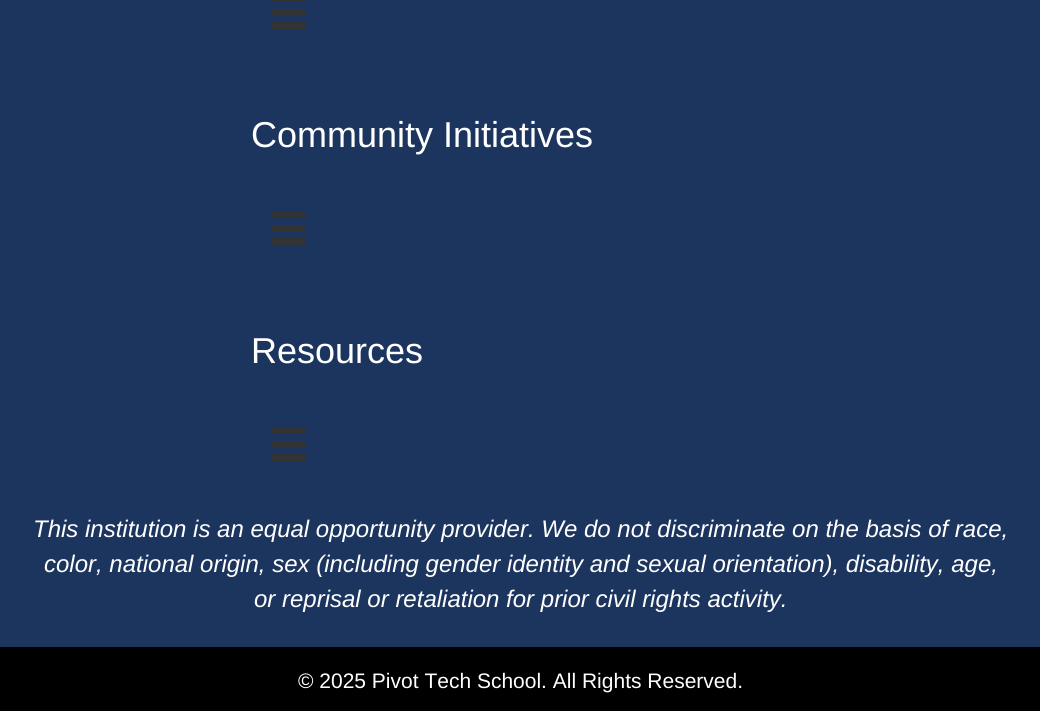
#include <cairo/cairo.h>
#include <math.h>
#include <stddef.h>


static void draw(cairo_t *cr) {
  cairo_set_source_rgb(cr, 28 / 255.0, 53 / 255.0, 94 / 255.0);
  cairo_paint(cr);
  cairo_set_source_rgb(cr, 51 / 255.0, 51 / 255.0, 51 / 255.0);
  cairo_rectangle(cr, 272, 0, 33, 2);
  cairo_fill(cr);
  cairo_rectangle(cr, 272, 9, 33, 7);
  cairo_fill(cr);
  cairo_rectangle(cr, 272, 22, 33, 7);
  cairo_fill(cr);
  cairo_rectangle(cr, 272, 212, 33, 6);
  cairo_fill(cr);
  cairo_rectangle(cr, 272, 225, 33, 7);
  cairo_fill(cr);
  cairo_rectangle(cr, 272, 238, 33, 7);
  cairo_fill(cr);
  cairo_rectangle(cr, 272, 428, 33, 6);
  cairo_fill(cr);
  cairo_rectangle(cr, 272, 441, 33, 7);
  cairo_fill(cr);
  cairo_rectangle(cr, 272, 454, 33, 7);
  cairo_fill(cr);
  cairo_set_source_rgb(cr, 0, 0, 0);
  cairo_rectangle(cr, 0, 647, 1040, 64);
  cairo_fill(cr);
  cairo_select_font_face(cr, "Liberation Sans", CAIRO_FONT_SLANT_NORMAL, CAIRO_FONT_WEIGHT_NORMAL);
  cairo_set_font_size(cr, 36);
  cairo_set_source_rgb(cr, 1, 1, 1);
  cairo_move_to(cr, 251, 147);
  cairo_show_text(cr, "Community Initiatives");
  cairo_move_to(cr, 251, 363);
  cairo_show_text(cr, "Resources");
  cairo_select_font_face(cr, "Liberation Sans", CAIRO_FONT_SLANT_ITALIC, CAIRO_FONT_WEIGHT_NORMAL);
  cairo_set_font_size(cr, 24);
  cairo_move_to(cr, 33, 537);
  cairo_show_text(cr, "This institution is an equal opportunity provider. We do not discriminate on the basis of race,");
  cairo_move_to(cr, 44, 572);
  cairo_show_text(cr, "color, national origin, sex (including gender identity and sexual orientation), disability, age,");
  cairo_move_to(cr, 254, 607);
  cairo_show_text(cr, "or reprisal or retaliation for prior civil rights activity.");
  cairo_select_font_face(cr, "Liberation Sans", CAIRO_FONT_SLANT_NORMAL, CAIRO_FONT_WEIGHT_NORMAL);
  cairo_set_font_size(cr, 21);
  cairo_move_to(cr, 298, 688);
  cairo_show_text(cr, "© 2025 Pivot Tech School. All Rights Reserved.");
}

int main(void) {
  cairo_surface_t *surface = cairo_image_surface_create(CAIRO_FORMAT_RGB24, 1040, 711);
  cairo_t *cr = cairo_create(surface);
  cairo_font_options_t *options = cairo_font_options_create();
  cairo_font_options_set_hint_metrics(options, CAIRO_HINT_METRICS_OFF);
  cairo_font_options_set_hint_style(options, CAIRO_HINT_STYLE_NONE);
  cairo_set_font_options(cr, options);
  cairo_set_miter_limit(cr, 4);
  draw(cr);
  cairo_surface_write_to_png(surface, "out.png");
  cairo_font_options_destroy(options);
  cairo_destroy(cr);
  cairo_surface_destroy(surface);
  return 0;
}
